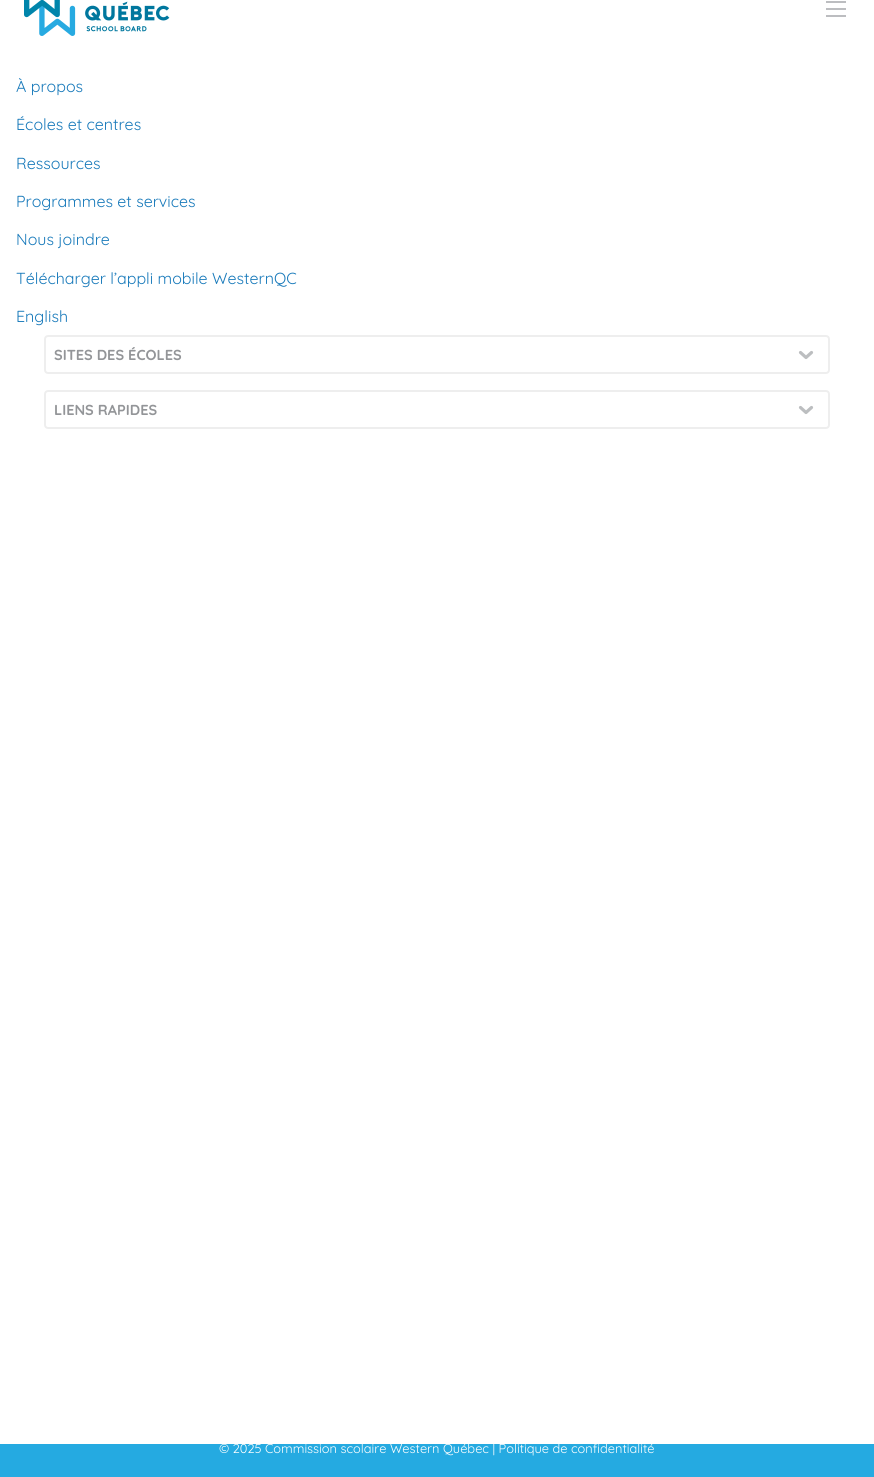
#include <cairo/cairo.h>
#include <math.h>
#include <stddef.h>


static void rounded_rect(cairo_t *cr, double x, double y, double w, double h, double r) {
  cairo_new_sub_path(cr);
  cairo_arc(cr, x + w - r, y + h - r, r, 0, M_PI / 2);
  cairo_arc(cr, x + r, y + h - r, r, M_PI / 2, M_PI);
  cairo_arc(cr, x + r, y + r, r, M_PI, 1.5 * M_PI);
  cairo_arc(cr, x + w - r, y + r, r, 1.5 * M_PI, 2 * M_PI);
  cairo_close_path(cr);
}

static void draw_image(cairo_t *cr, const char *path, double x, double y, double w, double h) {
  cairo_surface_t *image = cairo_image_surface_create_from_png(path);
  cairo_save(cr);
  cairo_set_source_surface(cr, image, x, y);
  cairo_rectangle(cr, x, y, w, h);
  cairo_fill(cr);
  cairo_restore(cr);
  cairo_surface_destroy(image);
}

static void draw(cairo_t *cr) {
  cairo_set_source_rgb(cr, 1, 1, 1);
  cairo_paint(cr);
  draw_image(cr, "images/1.png", 24, 0, 146, 36);
  cairo_set_source_rgb(cr, 188 / 255.0, 189 / 255.0, 192 / 255.0);
  cairo_rectangle(cr, 826, 15, 20, 2);
  cairo_fill(cr);
  cairo_rectangle(cr, 826, 8, 20, 2);
  cairo_fill(cr);
  cairo_rectangle(cr, 826, 1, 20, 2);
  cairo_fill(cr);
  cairo_new_path(cr);
  cairo_move_to(cr, 811.5, 352.5);
  cairo_line_to(cr, 806, 357.5);
  cairo_line_to(cr, 800.5, 352.5);
  cairo_set_source_rgb(cr, 188 / 255.0, 190 / 255.0, 192 / 255.0);
  cairo_set_line_width(cr, 3.2);
  cairo_set_line_cap(cr, CAIRO_LINE_CAP_ROUND);
  cairo_set_line_join(cr, CAIRO_LINE_JOIN_ROUND);
  cairo_stroke(cr);
  rounded_rect(cr, 45, 336, 784, 37, 3);
  cairo_set_source_rgb(cr, 238 / 255.0, 238 / 255.0, 238 / 255.0);
  cairo_set_line_width(cr, 2);
  cairo_set_line_cap(cr, CAIRO_LINE_CAP_BUTT);
  cairo_set_line_join(cr, CAIRO_LINE_JOIN_MITER);
  cairo_stroke(cr);
  cairo_new_path(cr);
  cairo_move_to(cr, 811.5, 407.5);
  cairo_line_to(cr, 806, 412.5);
  cairo_line_to(cr, 800.5, 407.5);
  cairo_set_source_rgb(cr, 188 / 255.0, 190 / 255.0, 192 / 255.0);
  cairo_set_line_width(cr, 3.2);
  cairo_set_line_cap(cr, CAIRO_LINE_CAP_ROUND);
  cairo_set_line_join(cr, CAIRO_LINE_JOIN_ROUND);
  cairo_stroke(cr);
  rounded_rect(cr, 45, 391, 784, 37, 3);
  cairo_set_source_rgb(cr, 238 / 255.0, 238 / 255.0, 238 / 255.0);
  cairo_set_line_width(cr, 2);
  cairo_set_line_cap(cr, CAIRO_LINE_CAP_BUTT);
  cairo_set_line_join(cr, CAIRO_LINE_JOIN_MITER);
  cairo_stroke(cr);
  cairo_set_source_rgb(cr, 37 / 255.0, 170 / 255.0, 225 / 255.0);
  cairo_rectangle(cr, 0, 1444, 874, 33);
  cairo_fill(cr);
  cairo_select_font_face(cr, "Quicksand", CAIRO_FONT_SLANT_NORMAL, CAIRO_FONT_WEIGHT_NORMAL);
  cairo_set_font_size(cr, 16);
  cairo_set_source_rgb(cr, 23 / 255.0, 121 / 255.0, 186 / 255.0);
  cairo_move_to(cr, 16, 92);
  cairo_show_text(cr, "À propos");
  cairo_move_to(cr, 16, 130);
  cairo_show_text(cr, "Écoles et centres");
  cairo_move_to(cr, 16, 169);
  cairo_show_text(cr, "Ressources");
  cairo_move_to(cr, 16, 207);
  cairo_show_text(cr, "Programmes et services");
  cairo_move_to(cr, 16, 245);
  cairo_show_text(cr, "Nous joindre");
  cairo_move_to(cr, 16, 284);
  cairo_show_text(cr, "Télécharger l’appli mobile WesternQC");
  cairo_move_to(cr, 16, 322);
  cairo_show_text(cr, "English");
  cairo_select_font_face(cr, "Quicksand", CAIRO_FONT_SLANT_NORMAL, CAIRO_FONT_WEIGHT_BOLD);
  cairo_set_font_size(cr, 14.5);
  cairo_set_source_rgb(cr, 147 / 255.0, 149 / 255.0, 152 / 255.0);
  cairo_move_to(cr, 54, 360);
  cairo_show_text(cr, "SITES DES ÉCOLES");
  cairo_move_to(cr, 54, 415);
  cairo_show_text(cr, "LIENS RAPIDES");
  cairo_select_font_face(cr, "Quicksand", CAIRO_FONT_SLANT_NORMAL, CAIRO_FONT_WEIGHT_NORMAL);
  cairo_set_font_size(cr, 12.8);
  cairo_set_source_rgb(cr, 1, 1, 1);
  cairo_move_to(cr, 219, 1453);
  cairo_show_text(cr, "© 2025 Commission scolaire Western Québec | Politique de confidentialité");
}

int main(void) {
  cairo_surface_t *surface = cairo_image_surface_create(CAIRO_FORMAT_RGB24, 874, 1477);
  cairo_t *cr = cairo_create(surface);
  cairo_font_options_t *options = cairo_font_options_create();
  cairo_font_options_set_hint_metrics(options, CAIRO_HINT_METRICS_OFF);
  cairo_font_options_set_hint_style(options, CAIRO_HINT_STYLE_NONE);
  cairo_set_font_options(cr, options);
  cairo_set_miter_limit(cr, 4);
  draw(cr);
  cairo_surface_write_to_png(surface, "out.png");
  cairo_font_options_destroy(options);
  cairo_destroy(cr);
  cairo_surface_destroy(surface);
  return 0;
}
